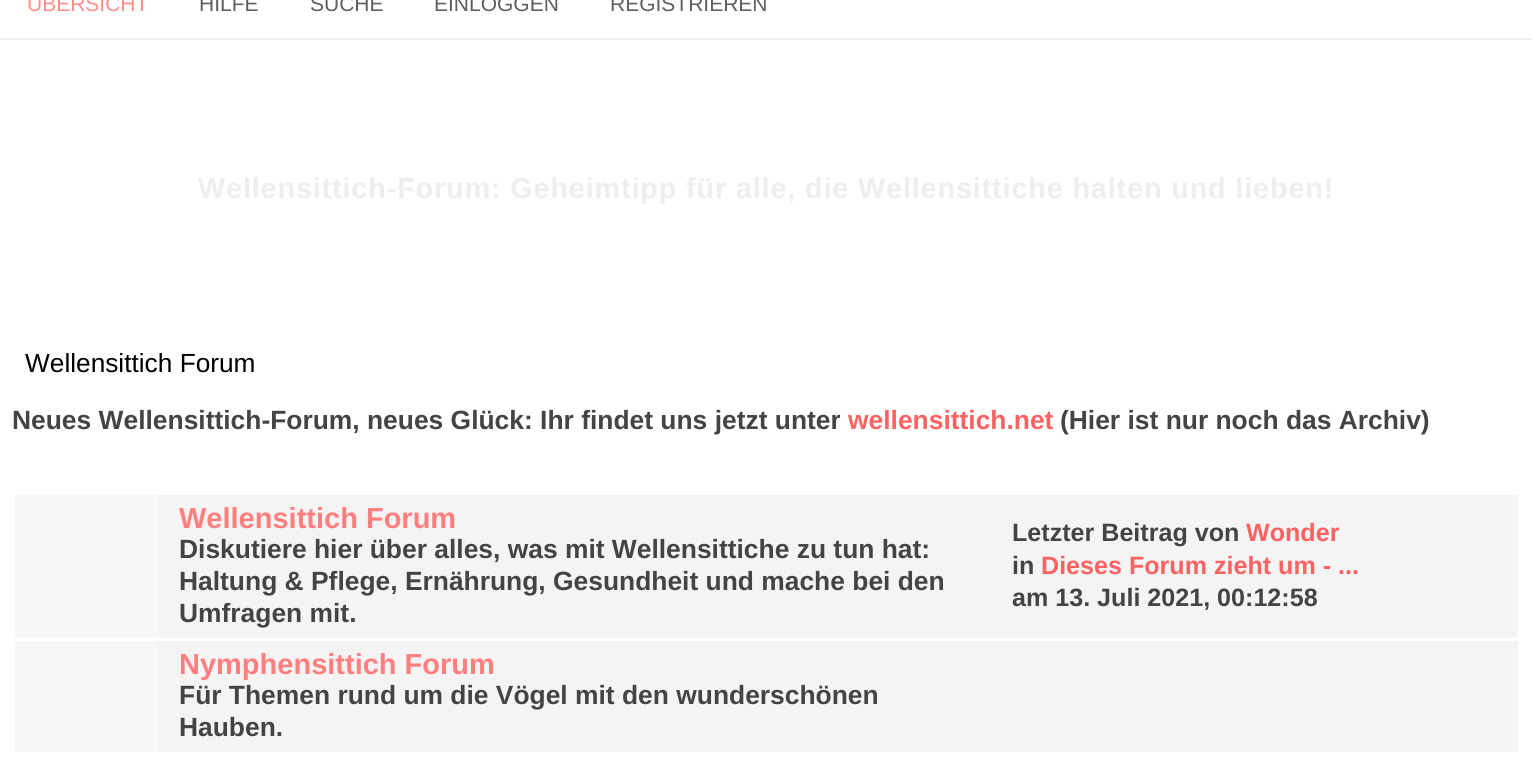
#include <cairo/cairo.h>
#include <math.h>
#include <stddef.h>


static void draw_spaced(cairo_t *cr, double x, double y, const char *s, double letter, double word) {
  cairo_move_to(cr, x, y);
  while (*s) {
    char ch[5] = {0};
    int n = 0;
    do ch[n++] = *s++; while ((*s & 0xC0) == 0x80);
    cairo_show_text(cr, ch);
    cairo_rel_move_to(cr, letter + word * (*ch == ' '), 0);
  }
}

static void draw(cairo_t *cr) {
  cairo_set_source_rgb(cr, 1, 1, 1);
  cairo_paint(cr);
  cairo_set_source_rgb(cr, 241 / 255.0, 241 / 255.0, 241 / 255.0);
  cairo_rectangle(cr, 0, 38, 1532, 2);
  cairo_fill(cr);
  cairo_set_source_rgb(cr, 244 / 255.0, 244 / 255.0, 244 / 255.0);
  cairo_rectangle(cr, 158, 495, 1360, 143);
  cairo_fill(cr);
  cairo_set_source_rgb(cr, 247 / 255.0, 247 / 255.0, 247 / 255.0);
  cairo_rectangle(cr, 15, 495, 143, 143);
  cairo_fill(cr);
  cairo_set_source_rgb(cr, 244 / 255.0, 244 / 255.0, 244 / 255.0);
  cairo_rectangle(cr, 158, 641, 1360, 111);
  cairo_fill(cr);
  cairo_set_source_rgb(cr, 247 / 255.0, 247 / 255.0, 247 / 255.0);
  cairo_rectangle(cr, 15, 641, 143, 111);
  cairo_fill(cr);
  cairo_select_font_face(cr, "Liberation Sans", CAIRO_FONT_SLANT_NORMAL, CAIRO_FONT_WEIGHT_NORMAL);
  cairo_set_font_size(cr, 21);
  cairo_set_source_rgb(cr, 1, 139 / 255.0, 139 / 255.0);
  cairo_move_to(cr, 27, 11);
  cairo_show_text(cr, "ÜBERSICHT");
  cairo_set_source_rgb(cr, 94 / 255.0, 94 / 255.0, 94 / 255.0);
  cairo_move_to(cr, 199, 11);
  cairo_show_text(cr, "HILFE");
  cairo_move_to(cr, 310, 11);
  cairo_show_text(cr, "SUCHE");
  cairo_move_to(cr, 434, 11);
  cairo_show_text(cr, "EINLOGGEN");
  cairo_move_to(cr, 610, 11);
  cairo_show_text(cr, "REGISTRIEREN");
  cairo_select_font_face(cr, "Liberation Sans", CAIRO_FONT_SLANT_NORMAL, CAIRO_FONT_WEIGHT_BOLD);
  cairo_set_font_size(cr, 28.8);
  cairo_set_source_rgb(cr, 238 / 255.0, 238 / 255.0, 238 / 255.0);
  draw_spaced(cr, 198, 198, "Wellensittich-Forum: Geheimtipp für alle, die Wellensittiche halten und lieben!", 0.85, 0);
  cairo_select_font_face(cr, "Liberation Sans", CAIRO_FONT_SLANT_NORMAL, CAIRO_FONT_WEIGHT_NORMAL);
  cairo_set_font_size(cr, 26.25);
  cairo_set_source_rgb(cr, 0, 0, 0);
  cairo_move_to(cr, 25, 372);
  cairo_show_text(cr, "Wellensittich Forum");
  cairo_select_font_face(cr, "Liberation Sans", CAIRO_FONT_SLANT_NORMAL, CAIRO_FONT_WEIGHT_BOLD);
  cairo_set_font_size(cr, 26.4);
  cairo_set_source_rgb(cr, 68 / 255.0, 68 / 255.0, 68 / 255.0);
  cairo_move_to(cr, 12, 429);
  cairo_show_text(cr, "Neues Wellensittich-Forum, neues Glück: Ihr findet uns jetzt unter");
  cairo_move_to(cr, 1060, 429);
  cairo_show_text(cr, "(Hier ist nur noch das Archiv)");
  cairo_set_font_size(cr, 29);
  cairo_set_source_rgb(cr, 1, 126 / 255.0, 126 / 255.0);
  cairo_move_to(cr, 179, 528);
  cairo_show_text(cr, "Wellensittich Forum");
  cairo_set_font_size(cr, 26.4);
  cairo_set_source_rgb(cr, 68 / 255.0, 68 / 255.0, 68 / 255.0);
  cairo_move_to(cr, 179, 558);
  cairo_show_text(cr, "Diskutiere hier über alles, was mit Wellensittiche zu tun hat:");
  cairo_move_to(cr, 179, 590);
  cairo_show_text(cr, "Haltung & Pflege, Ernährung, Gesundheit und mache bei den");
  cairo_move_to(cr, 179, 622);
  cairo_show_text(cr, "Umfragen mit.");
  cairo_set_font_size(cr, 25.1);
  cairo_move_to(cr, 1012, 541);
  cairo_show_text(cr, "Letzter Beitrag von");
  cairo_set_source_rgb(cr, 252 / 255.0, 98 / 255.0, 98 / 255.0);
  cairo_move_to(cr, 1246, 541);
  cairo_show_text(cr, "Wonder");
  cairo_set_source_rgb(cr, 68 / 255.0, 68 / 255.0, 68 / 255.0);
  cairo_move_to(cr, 1012, 574);
  cairo_show_text(cr, "in");
  cairo_set_source_rgb(cr, 252 / 255.0, 98 / 255.0, 98 / 255.0);
  cairo_move_to(cr, 1041, 574);
  cairo_show_text(cr, "Dieses Forum zieht um - ...");
  cairo_set_source_rgb(cr, 68 / 255.0, 68 / 255.0, 68 / 255.0);
  cairo_move_to(cr, 1012, 606);
  cairo_show_text(cr, "am 13. Juli 2021, 00:12:58");
  cairo_set_font_size(cr, 29);
  cairo_set_source_rgb(cr, 1, 126 / 255.0, 126 / 255.0);
  cairo_move_to(cr, 179, 674);
  cairo_show_text(cr, "Nymphensittich Forum");
  cairo_set_font_size(cr, 26.4);
  cairo_set_source_rgb(cr, 68 / 255.0, 68 / 255.0, 68 / 255.0);
  cairo_move_to(cr, 179, 704);
  cairo_show_text(cr, "Für Themen rund um die Vögel mit den wunderschönen");
  cairo_move_to(cr, 179, 736);
  cairo_show_text(cr, "Hauben.");
  cairo_set_source_rgb(cr, 252 / 255.0, 98 / 255.0, 98 / 255.0);
  cairo_move_to(cr, 848, 429);
  cairo_show_text(cr, "wellensittich.net");
}

int main(void) {
  cairo_surface_t *surface = cairo_image_surface_create(CAIRO_FORMAT_RGB24, 1532, 772);
  cairo_t *cr = cairo_create(surface);
  cairo_font_options_t *options = cairo_font_options_create();
  cairo_font_options_set_hint_metrics(options, CAIRO_HINT_METRICS_OFF);
  cairo_font_options_set_hint_style(options, CAIRO_HINT_STYLE_NONE);
  cairo_set_font_options(cr, options);
  cairo_set_miter_limit(cr, 4);
  draw(cr);
  cairo_surface_write_to_png(surface, "out.png");
  cairo_font_options_destroy(options);
  cairo_destroy(cr);
  cairo_surface_destroy(surface);
  return 0;
}
